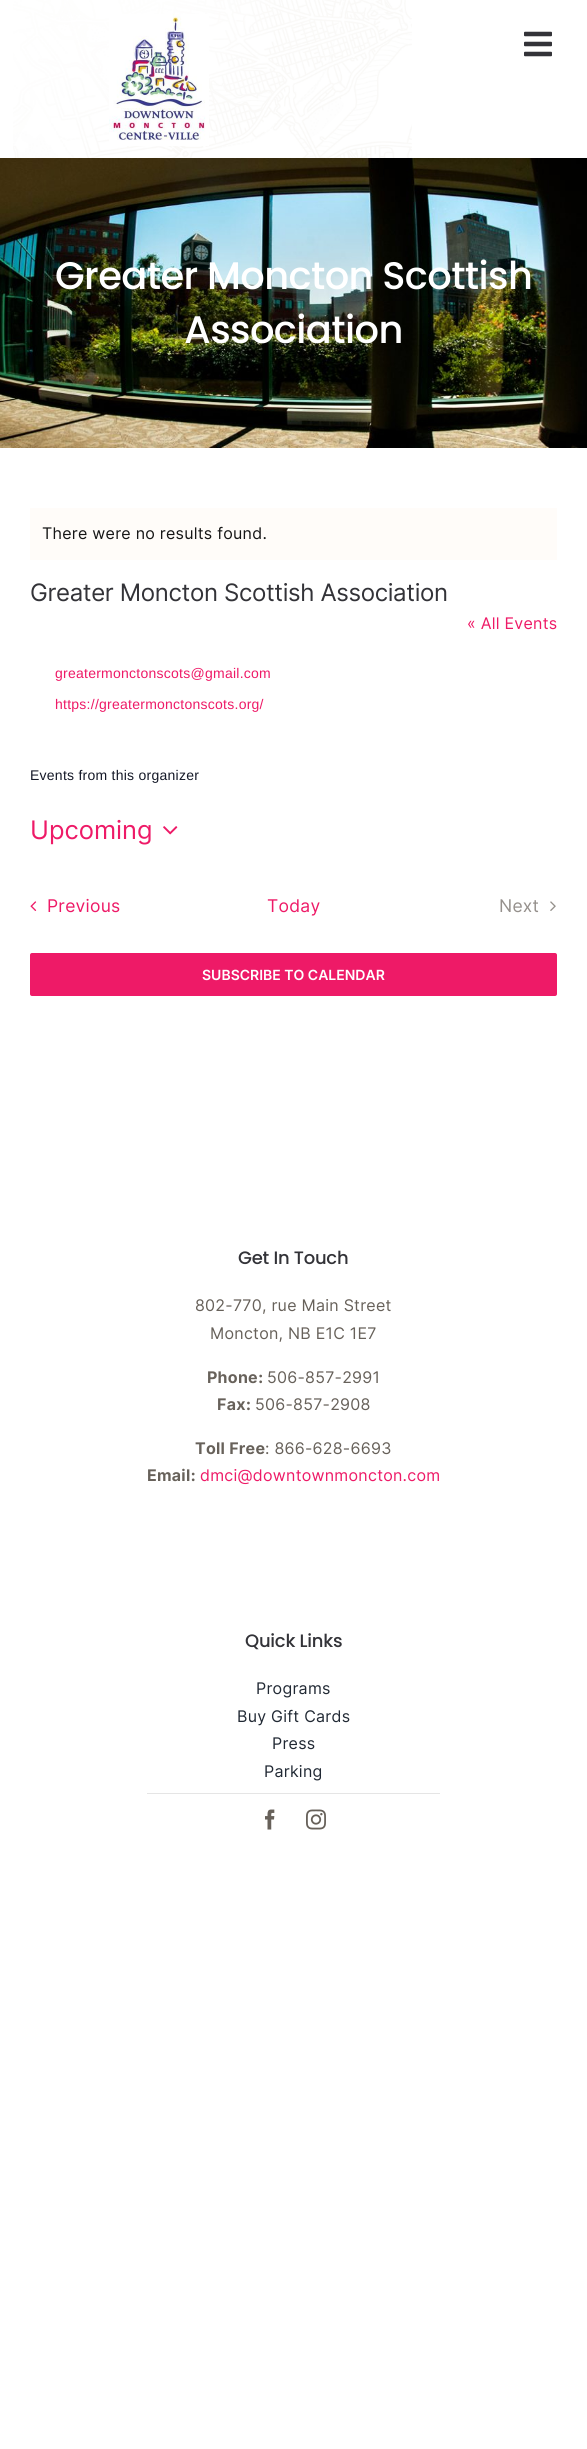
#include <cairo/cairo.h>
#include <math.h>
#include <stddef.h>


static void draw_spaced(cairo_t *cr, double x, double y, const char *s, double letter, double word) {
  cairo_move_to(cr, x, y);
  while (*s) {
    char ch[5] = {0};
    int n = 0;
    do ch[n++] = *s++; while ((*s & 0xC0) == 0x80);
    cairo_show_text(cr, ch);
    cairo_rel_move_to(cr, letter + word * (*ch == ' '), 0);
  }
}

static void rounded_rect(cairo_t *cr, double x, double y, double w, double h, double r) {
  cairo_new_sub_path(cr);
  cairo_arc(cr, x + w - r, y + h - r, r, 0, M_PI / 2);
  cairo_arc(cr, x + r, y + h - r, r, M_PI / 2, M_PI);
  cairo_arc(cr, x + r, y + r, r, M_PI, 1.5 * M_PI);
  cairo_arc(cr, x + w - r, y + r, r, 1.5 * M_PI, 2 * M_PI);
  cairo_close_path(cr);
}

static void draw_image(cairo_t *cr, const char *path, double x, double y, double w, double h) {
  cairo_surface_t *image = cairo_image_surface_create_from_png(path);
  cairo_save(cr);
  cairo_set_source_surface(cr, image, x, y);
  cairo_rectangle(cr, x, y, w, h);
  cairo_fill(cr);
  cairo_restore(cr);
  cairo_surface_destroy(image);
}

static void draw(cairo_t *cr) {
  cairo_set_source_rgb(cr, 1, 1, 1);
  cairo_paint(cr);
  draw_image(cr, "images/1.png", 13, 0, 399, 158);
  draw_image(cr, "images/2.png", 109, 14, 100, 132);
  draw_image(cr, "images/3.png", 524, 31, 28, 26);
  draw_image(cr, "images/4.png", 0, 158, 587, 290);
  cairo_set_source_rgb(cr, 1, 252 / 255.0, 249 / 255.0);
  cairo_rectangle(cr, 30, 508, 527, 52);
  cairo_fill(cr);
  draw_image(cr, "images/5.png", 163, 826, 15, 9);
  draw_image(cr, "images/6.png", 30, 901, 7, 10);
  draw_image(cr, "images/7.png", 550, 901, 6, 10);
  cairo_set_source_rgb(cr, 238 / 255.0, 26 / 255.0, 103 / 255.0);
  rounded_rect(cr, 30, 953, 527, 43, 2);
  cairo_fill(cr);
  cairo_set_source_rgb(cr, 229 / 255.0, 229 / 255.0, 229 / 255.0);
  cairo_rectangle(cr, 147, 1793, 293, 1);
  cairo_fill(cr);
  draw_image(cr, "images/8.png", 265, 1809, 10, 21);
  draw_image(cr, "images/9.png", 306, 1809, 20, 21);
  cairo_select_font_face(cr, "Poppins Medium", CAIRO_FONT_SLANT_NORMAL, CAIRO_FONT_WEIGHT_NORMAL);
  cairo_set_font_size(cr, 38.4);
  cairo_set_source_rgb(cr, 1, 1, 1);
  draw_spaced(cr, 55, 289, "Greater Moncton Scottish", -0.6, 0);
  draw_spaced(cr, 184, 343, "Association", -0.6, 0);
  cairo_select_font_face(cr, "Inter", CAIRO_FONT_SLANT_NORMAL, CAIRO_FONT_WEIGHT_NORMAL);
  cairo_set_font_size(cr, 16);
  cairo_set_source_rgb(cr, 22 / 255.0, 22 / 255.0, 22 / 255.0);
  draw_spaced(cr, 42, 539, "There were no results found.", 0.25, 0);
  cairo_set_font_size(cr, 24);
  cairo_set_source_rgb(cr, 51 / 255.0, 51 / 255.0, 56 / 255.0);
  draw_spaced(cr, 30, 601, "Greater Moncton Scottish Association", -0.35, 0);
  cairo_set_font_size(cr, 16);
  cairo_set_source_rgb(cr, 238 / 255.0, 26 / 255.0, 103 / 255.0);
  draw_spaced(cr, 467, 629, "« All Events", 0.25, 0);
  cairo_select_font_face(cr, "Liberation Sans", CAIRO_FONT_SLANT_NORMAL, CAIRO_FONT_WEIGHT_NORMAL);
  cairo_set_font_size(cr, 14);
  draw_spaced(cr, 55, 678, "greatermonctonscots@gmail.com", 0.25, 0);
  draw_spaced(cr, 55, 709, "https://greatermonctonscots.org/", 0.25, 0);
  cairo_set_source_rgb(cr, 20 / 255.0, 24 / 255.0, 39 / 255.0);
  draw_spaced(cr, 30, 780, "Events from this organizer", 0.25, 0);
  cairo_select_font_face(cr, "Inter", CAIRO_FONT_SLANT_NORMAL, CAIRO_FONT_WEIGHT_NORMAL);
  cairo_set_font_size(cr, 25.5);
  cairo_set_source_rgb(cr, 238 / 255.0, 26 / 255.0, 103 / 255.0);
  cairo_move_to(cr, 30, 839);
  cairo_show_text(cr, "Upcoming");
  cairo_set_font_size(cr, 17.5);
  draw_spaced(cr, 47, 912, "Previous", 0.25, 0);
  draw_spaced(cr, 267, 912, "Today", 0.25, 0);
  cairo_set_source_rgb(cr, 149 / 255.0, 144 / 255.0, 140 / 255.0);
  draw_spaced(cr, 499, 912, "Next", 0.25, 0);
  cairo_select_font_face(cr, "Inter SemiBold", CAIRO_FONT_SLANT_NORMAL, CAIRO_FONT_WEIGHT_NORMAL);
  cairo_set_font_size(cr, 14);
  cairo_set_source_rgb(cr, 1, 1, 1);
  cairo_move_to(cr, 202, 980);
  cairo_show_text(cr, "SUBSCRIBE TO CALENDAR");
  cairo_select_font_face(cr, "Poppins Medium", CAIRO_FONT_SLANT_NORMAL, CAIRO_FONT_WEIGHT_NORMAL);
  cairo_set_font_size(cr, 18);
  cairo_set_source_rgb(cr, 51 / 255.0, 51 / 255.0, 56 / 255.0);
  draw_spaced(cr, 238, 1264, "Get In Touch", -0.25, 0);
  cairo_select_font_face(cr, "Inter", CAIRO_FONT_SLANT_NORMAL, CAIRO_FONT_WEIGHT_NORMAL);
  cairo_set_font_size(cr, 16);
  cairo_set_source_rgb(cr, 103 / 255.0, 97 / 255.0, 90 / 255.0);
  draw_spaced(cr, 195, 1311, "802-770, rue Main Street", 0.25, 0);
  draw_spaced(cr, 210, 1339, "Moncton, NB E1C 1E7", 0.25, 0);
  cairo_select_font_face(cr, "Inter", CAIRO_FONT_SLANT_NORMAL, CAIRO_FONT_WEIGHT_BOLD);
  draw_spaced(cr, 207, 1383, "Phone:", 0.25, 0);
  cairo_select_font_face(cr, "Inter", CAIRO_FONT_SLANT_NORMAL, CAIRO_FONT_WEIGHT_NORMAL);
  draw_spaced(cr, 267, 1383, "506-857-2991", 0.25, 0);
  cairo_select_font_face(cr, "Inter", CAIRO_FONT_SLANT_NORMAL, CAIRO_FONT_WEIGHT_BOLD);
  draw_spaced(cr, 217, 1410, "Fax:", 0.25, 0);
  cairo_select_font_face(cr, "Inter", CAIRO_FONT_SLANT_NORMAL, CAIRO_FONT_WEIGHT_NORMAL);
  draw_spaced(cr, 255, 1410, "506-857-2908", 0.25, 0);
  cairo_select_font_face(cr, "Inter", CAIRO_FONT_SLANT_NORMAL, CAIRO_FONT_WEIGHT_BOLD);
  draw_spaced(cr, 195, 1454, "Toll Free", 0.25, 0);
  cairo_select_font_face(cr, "Inter", CAIRO_FONT_SLANT_NORMAL, CAIRO_FONT_WEIGHT_NORMAL);
  draw_spaced(cr, 265, 1454, ": 866-628-6693", 0.25, 0);
  cairo_select_font_face(cr, "Inter", CAIRO_FONT_SLANT_NORMAL, CAIRO_FONT_WEIGHT_BOLD);
  draw_spaced(cr, 147, 1481, "Email:", 0.25, 0);
  cairo_select_font_face(cr, "Inter", CAIRO_FONT_SLANT_NORMAL, CAIRO_FONT_WEIGHT_NORMAL);
  cairo_set_source_rgb(cr, 238 / 255.0, 26 / 255.0, 103 / 255.0);
  draw_spaced(cr, 200, 1481, "dmci@downtownmoncton.com", 0.25, 0);
  cairo_select_font_face(cr, "Poppins Medium", CAIRO_FONT_SLANT_NORMAL, CAIRO_FONT_WEIGHT_NORMAL);
  cairo_set_font_size(cr, 18);
  cairo_set_source_rgb(cr, 51 / 255.0, 51 / 255.0, 56 / 255.0);
  draw_spaced(cr, 245, 1647, "Quick Links", -0.25, 0);
  cairo_select_font_face(cr, "Inter", CAIRO_FONT_SLANT_NORMAL, CAIRO_FONT_WEIGHT_NORMAL);
  cairo_set_font_size(cr, 16);
  cairo_set_source_rgb(cr, 33 / 255.0, 41 / 255.0, 52 / 255.0);
  draw_spaced(cr, 256, 1694, "Programs", 0.25, 0);
  draw_spaced(cr, 237, 1722, "Buy Gift Cards", 0.25, 0);
  draw_spaced(cr, 272, 1749, "Press", 0.25, 0);
  draw_spaced(cr, 264, 1777, "Parking", 0.25, 0);
}

int main(void) {
  cairo_surface_t *surface = cairo_image_surface_create(CAIRO_FORMAT_RGB24, 587, 2449);
  cairo_t *cr = cairo_create(surface);
  cairo_font_options_t *options = cairo_font_options_create();
  cairo_font_options_set_hint_metrics(options, CAIRO_HINT_METRICS_OFF);
  cairo_font_options_set_hint_style(options, CAIRO_HINT_STYLE_NONE);
  cairo_set_font_options(cr, options);
  cairo_set_miter_limit(cr, 4);
  draw(cr);
  cairo_surface_write_to_png(surface, "out.png");
  cairo_font_options_destroy(options);
  cairo_destroy(cr);
  cairo_surface_destroy(surface);
  return 0;
}
